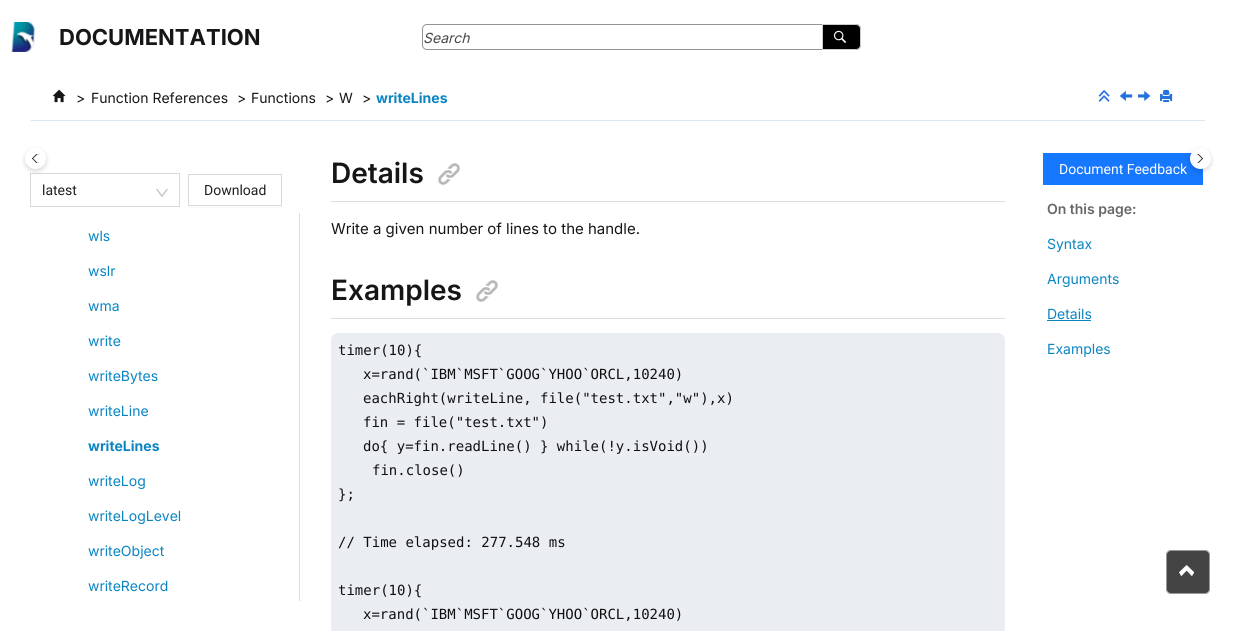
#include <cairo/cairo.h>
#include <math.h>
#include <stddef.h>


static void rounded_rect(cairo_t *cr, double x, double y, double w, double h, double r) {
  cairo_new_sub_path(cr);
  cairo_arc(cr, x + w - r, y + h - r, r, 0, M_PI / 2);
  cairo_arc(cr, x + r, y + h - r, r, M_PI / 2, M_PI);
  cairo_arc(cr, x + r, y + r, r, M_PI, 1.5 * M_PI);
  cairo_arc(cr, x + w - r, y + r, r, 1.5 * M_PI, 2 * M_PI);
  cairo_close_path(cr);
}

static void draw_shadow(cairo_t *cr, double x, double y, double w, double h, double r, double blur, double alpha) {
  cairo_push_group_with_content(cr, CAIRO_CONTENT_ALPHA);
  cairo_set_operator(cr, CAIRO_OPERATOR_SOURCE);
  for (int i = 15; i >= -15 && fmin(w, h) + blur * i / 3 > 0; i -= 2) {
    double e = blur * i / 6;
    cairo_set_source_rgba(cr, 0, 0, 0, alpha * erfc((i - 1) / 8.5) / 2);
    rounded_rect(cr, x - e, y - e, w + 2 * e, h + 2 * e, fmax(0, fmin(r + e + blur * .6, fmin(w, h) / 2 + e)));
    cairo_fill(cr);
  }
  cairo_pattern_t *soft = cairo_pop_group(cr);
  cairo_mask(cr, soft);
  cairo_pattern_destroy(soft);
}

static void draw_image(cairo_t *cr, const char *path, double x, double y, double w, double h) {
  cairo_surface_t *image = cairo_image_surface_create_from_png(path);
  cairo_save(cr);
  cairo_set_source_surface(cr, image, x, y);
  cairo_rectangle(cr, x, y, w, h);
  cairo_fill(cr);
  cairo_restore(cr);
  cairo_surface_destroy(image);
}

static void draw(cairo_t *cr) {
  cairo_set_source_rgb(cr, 1, 1, 1);
  cairo_paint(cr);
  draw_image(cr, "images/1.png", 11, 22, 24, 30);
  rounded_rect(cr, 422.5, 24.5, 438, 25, 4.5);
  cairo_set_source_rgb(cr, 147 / 255.0, 147 / 255.0, 147 / 255.0);
  cairo_set_line_width(cr, 1);
  cairo_stroke(cr);
  cairo_set_source_rgb(cr, 0, 0, 0);
  cairo_new_path(cr);
  cairo_move_to(cr, 822.5, 24.5);
  cairo_line_to(cr, 856, 24.5);
  cairo_curve_to(cr, 858.5, 24.5, 860.5, 26.5, 860.5, 29);
  cairo_line_to(cr, 860.5, 45);
  cairo_curve_to(cr, 860.5, 47.5, 858.5, 49.5, 856, 49.5);
  cairo_line_to(cr, 822.5, 49.5);
  cairo_close_path(cr);
  cairo_fill_preserve(cr);
  cairo_set_source_rgb(cr, 204 / 255.0, 204 / 255.0, 204 / 255.0);
  cairo_stroke(cr);
  draw_image(cr, "images/2.png", 833, 30, 14, 13);
  cairo_set_source_rgb(cr, 220 / 255.0, 229 / 255.0, 242 / 255.0);
  cairo_rectangle(cr, 31, 120, 1174, 1);
  cairo_fill(cr);
  draw_image(cr, "images/3.png", 52, 89, 14, 14);
  draw_image(cr, "images/4.png", 1098, 90, 12, 12);
  draw_image(cr, "images/5.png", 1120, 91, 13, 10);
  draw_image(cr, "images/6.png", 1137, 91, 14, 10);
  draw_image(cr, "images/7.png", 1160, 89, 13, 13);
  cairo_rectangle(cr, 30.5, 173.5, 149, 33);
  cairo_set_source_rgb(cr, 217 / 255.0, 217 / 255.0, 217 / 255.0);
  cairo_stroke(cr);
  cairo_set_source_rgb(cr, 0, 0, 0);
  draw_shadow(cr, 25, 150, 21, 21, 10.5, 2.5, 0.16);
  cairo_set_source_rgb(cr, 1, 1, 1);
  cairo_arc(cr, 35.5, 158.5, 10.5, 0, 2 * M_PI);
  cairo_fill(cr);
  cairo_save(cr);
  cairo_rectangle(cr, 32, 154, 7, 9);
  cairo_clip(cr);
  cairo_new_path(cr);
  cairo_move_to(cr, 38, 153);
  cairo_line_to(cr, 43.5, 158.5);
  cairo_line_to(cr, 38, 164);
  cairo_line_to(cr, 32.5, 158.5);
  cairo_close_path(cr);
  cairo_set_source_rgb(cr, 52 / 255.0, 58 / 255.0, 64 / 255.0);
  cairo_stroke(cr);
  cairo_restore(cr);
  draw_image(cr, "images/8.png", 156, 189, 12, 8);
  cairo_set_source_rgb(cr, 250 / 255.0, 250 / 255.0, 250 / 255.0);
  cairo_rectangle(cr, 188, 206, 94, 2);
  cairo_fill(cr);
  cairo_rectangle(cr, 188.5, 174.5, 93, 31);
  cairo_set_source_rgb(cr, 217 / 255.0, 217 / 255.0, 217 / 255.0);
  cairo_stroke(cr);
  cairo_set_source_rgb(cr, 216 / 255.0, 222 / 255.0, 228 / 255.0);
  cairo_rectangle(cr, 299, 213, 1, 388);
  cairo_fill(cr);
  cairo_rectangle(cr, 331, 201, 674, 1);
  cairo_fill(cr);
  draw_image(cr, "images/9.png", 438, 163, 22, 22);
  cairo_rectangle(cr, 331, 318, 674, 1);
  cairo_fill(cr);
  draw_image(cr, "images/10.png", 476, 280, 22, 22);
  cairo_set_source_rgb(cr, 234 / 255.0, 238 / 255.0, 242 / 255.0);
  rounded_rect(cr, 331, 333, 674, 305, 7);
  cairo_fill(cr);
  cairo_set_source_rgb(cr, 22 / 255.0, 119 / 255.0, 1);
  cairo_rectangle(cr, 1043, 153, 160, 32);
  cairo_fill(cr);
  cairo_set_source_rgb(cr, 0, 0, 0);
  draw_shadow(cr, 1190, 150, 21, 21, 10.5, 2.5, 0.16);
  cairo_set_source_rgb(cr, 1, 1, 1);
  cairo_arc(cr, 1200.5, 158.5, 10.5, 0, 2 * M_PI);
  cairo_fill(cr);
  cairo_save(cr);
  cairo_rectangle(cr, 1197, 154, 7, 9);
  cairo_clip(cr);
  cairo_new_path(cr);
  cairo_move_to(cr, 1197, 164);
  cairo_line_to(cr, 1191.5, 158.5);
  cairo_line_to(cr, 1197, 153);
  cairo_line_to(cr, 1202.5, 158.5);
  cairo_close_path(cr);
  cairo_set_source_rgb(cr, 52 / 255.0, 58 / 255.0, 64 / 255.0);
  cairo_stroke(cr);
  cairo_restore(cr);
  cairo_set_source_rgb(cr, 10 / 255.0, 133 / 255.0, 194 / 255.0);
  cairo_rectangle(cr, 1047, 320, 44, 1);
  cairo_fill(cr);
  cairo_set_source_rgb(cr, 68 / 255.0, 68 / 255.0, 68 / 255.0);
  rounded_rect(cr, 1166.5, 550.5, 43, 43, 4.5);
  cairo_fill_preserve(cr);
  cairo_set_source_rgb(cr, 153 / 255.0, 153 / 255.0, 153 / 255.0);
  cairo_stroke(cr);
  draw_image(cr, "images/11.png", 1179, 565, 16, 11);
  cairo_select_font_face(cr, "Inter", CAIRO_FONT_SLANT_NORMAL, CAIRO_FONT_WEIGHT_BOLD);
  cairo_set_font_size(cr, 22);
  cairo_set_source_rgb(cr, 22 / 255.0, 21 / 255.0, 23 / 255.0);
  cairo_move_to(cr, 59, 45);
  cairo_show_text(cr, "DOCUMENTATION");
  cairo_select_font_face(cr, "Inter", CAIRO_FONT_SLANT_ITALIC, CAIRO_FONT_WEIGHT_NORMAL);
  cairo_set_font_size(cr, 14);
  cairo_set_source_rgb(cr, 73 / 255.0, 73 / 255.0, 73 / 255.0);
  cairo_move_to(cr, 423, 43);
  cairo_show_text(cr, "Search");
  cairo_select_font_face(cr, "Inter", CAIRO_FONT_SLANT_NORMAL, CAIRO_FONT_WEIGHT_NORMAL);
  cairo_set_source_rgb(cr, 22 / 255.0, 21 / 255.0, 23 / 255.0);
  cairo_move_to(cr, 76, 103);
  cairo_show_text(cr, ">");
  cairo_move_to(cr, 91, 103);
  cairo_show_text(cr, "Function References");
  cairo_move_to(cr, 237, 103);
  cairo_show_text(cr, ">");
  cairo_move_to(cr, 251, 103);
  cairo_show_text(cr, "Functions");
  cairo_move_to(cr, 325, 103);
  cairo_show_text(cr, ">");
  cairo_move_to(cr, 339, 103);
  cairo_show_text(cr, "W");
  cairo_move_to(cr, 362, 103);
  cairo_show_text(cr, ">");
  cairo_select_font_face(cr, "Inter", CAIRO_FONT_SLANT_NORMAL, CAIRO_FONT_WEIGHT_BOLD);
  cairo_set_source_rgb(cr, 10 / 255.0, 133 / 255.0, 194 / 255.0);
  cairo_move_to(cr, 376, 103);
  cairo_show_text(cr, "writeLines");
  cairo_select_font_face(cr, "Roboto", CAIRO_FONT_SLANT_NORMAL, CAIRO_FONT_WEIGHT_NORMAL);
  cairo_set_source_rgb(cr, 31 / 255.0, 31 / 255.0, 31 / 255.0);
  cairo_move_to(cr, 42, 195);
  cairo_show_text(cr, "latest");
  cairo_move_to(cr, 204, 195);
  cairo_show_text(cr, "Download");
  cairo_select_font_face(cr, "Inter", CAIRO_FONT_SLANT_NORMAL, CAIRO_FONT_WEIGHT_NORMAL);
  cairo_set_source_rgb(cr, 10 / 255.0, 133 / 255.0, 194 / 255.0);
  cairo_move_to(cr, 88, 241);
  cairo_show_text(cr, "wls");
  cairo_move_to(cr, 88, 276);
  cairo_show_text(cr, "wslr");
  cairo_move_to(cr, 88, 311);
  cairo_show_text(cr, "wma");
  cairo_move_to(cr, 88, 346);
  cairo_show_text(cr, "write");
  cairo_move_to(cr, 88, 381);
  cairo_show_text(cr, "writeBytes");
  cairo_move_to(cr, 88, 416);
  cairo_show_text(cr, "writeLine");
  cairo_select_font_face(cr, "Inter", CAIRO_FONT_SLANT_NORMAL, CAIRO_FONT_WEIGHT_BOLD);
  cairo_move_to(cr, 88, 451);
  cairo_show_text(cr, "writeLines");
  cairo_select_font_face(cr, "Inter", CAIRO_FONT_SLANT_NORMAL, CAIRO_FONT_WEIGHT_NORMAL);
  cairo_move_to(cr, 88, 486);
  cairo_show_text(cr, "writeLog");
  cairo_move_to(cr, 88, 521);
  cairo_show_text(cr, "writeLogLevel");
  cairo_move_to(cr, 88, 556);
  cairo_show_text(cr, "writeObject");
  cairo_move_to(cr, 88, 591);
  cairo_show_text(cr, "writeRecord");
  cairo_select_font_face(cr, "Inter SemiBold", CAIRO_FONT_SLANT_NORMAL, CAIRO_FONT_WEIGHT_NORMAL);
  cairo_set_font_size(cr, 28);
  cairo_set_source_rgb(cr, 22 / 255.0, 21 / 255.0, 23 / 255.0);
  cairo_move_to(cr, 331, 183);
  cairo_show_text(cr, "Details");
  cairo_select_font_face(cr, "Inter", CAIRO_FONT_SLANT_NORMAL, CAIRO_FONT_WEIGHT_NORMAL);
  cairo_set_font_size(cr, 15);
  cairo_move_to(cr, 331, 234);
  cairo_show_text(cr, "Write a given number of lines to the handle.");
  cairo_select_font_face(cr, "Inter SemiBold", CAIRO_FONT_SLANT_NORMAL, CAIRO_FONT_WEIGHT_NORMAL);
  cairo_set_font_size(cr, 28);
  cairo_move_to(cr, 331, 300);
  cairo_show_text(cr, "Examples");
  cairo_select_font_face(cr, "DejaVu Sans Mono", CAIRO_FONT_SLANT_NORMAL, CAIRO_FONT_WEIGHT_NORMAL);
  cairo_set_font_size(cr, 14);
  cairo_set_source_rgb(cr, 15 / 255.0, 15 / 255.0, 15 / 255.0);
  cairo_move_to(cr, 338, 355);
  cairo_show_text(cr, "timer(10){");
  cairo_move_to(cr, 363, 379);
  cairo_show_text(cr, "x=rand(`IBM`MSFT`GOOG`YHOO`ORCL,10240)");
  cairo_move_to(cr, 363, 403);
  cairo_show_text(cr, "eachRight(writeLine, file(\"test.txt\",\"w\"),x)");
  cairo_move_to(cr, 363, 427);
  cairo_show_text(cr, "fin = file(\"test.txt\")");
  cairo_move_to(cr, 363, 451);
  cairo_show_text(cr, "do{ y=fin.readLine() } while(!y.isVoid())");
  cairo_move_to(cr, 372, 475);
  cairo_show_text(cr, "fin.close()");
  cairo_move_to(cr, 338, 499);
  cairo_show_text(cr, "};");
  cairo_move_to(cr, 338, 547);
  cairo_show_text(cr, "// Time elapsed: 277.548 ms");
  cairo_move_to(cr, 338, 595);
  cairo_show_text(cr, "timer(10){");
  cairo_move_to(cr, 363, 619);
  cairo_show_text(cr, "x=rand(`IBM`MSFT`GOOG`YHOO`ORCL,10240)");
  cairo_select_font_face(cr, "Roboto", CAIRO_FONT_SLANT_NORMAL, CAIRO_FONT_WEIGHT_NORMAL);
  cairo_set_source_rgb(cr, 1, 1, 1);
  cairo_move_to(cr, 1059, 174);
  cairo_show_text(cr, "Document Feedback");
  cairo_select_font_face(cr, "Inter SemiBold", CAIRO_FONT_SLANT_NORMAL, CAIRO_FONT_WEIGHT_NORMAL);
  cairo_set_source_rgb(cr, 102 / 255.0, 102 / 255.0, 102 / 255.0);
  cairo_move_to(cr, 1047, 214);
  cairo_show_text(cr, "On this page:");
  cairo_select_font_face(cr, "Inter", CAIRO_FONT_SLANT_NORMAL, CAIRO_FONT_WEIGHT_NORMAL);
  cairo_set_source_rgb(cr, 10 / 255.0, 133 / 255.0, 194 / 255.0);
  cairo_move_to(cr, 1047, 249);
  cairo_show_text(cr, "Syntax");
  cairo_move_to(cr, 1047, 284);
  cairo_show_text(cr, "Arguments");
  cairo_move_to(cr, 1047, 319);
  cairo_show_text(cr, "Details");
  cairo_move_to(cr, 1047, 354);
  cairo_show_text(cr, "Examples");
}

int main(void) {
  cairo_surface_t *surface = cairo_image_surface_create(CAIRO_FORMAT_RGB24, 1235, 631);
  cairo_t *cr = cairo_create(surface);
  cairo_font_options_t *options = cairo_font_options_create();
  cairo_font_options_set_hint_metrics(options, CAIRO_HINT_METRICS_OFF);
  cairo_font_options_set_hint_style(options, CAIRO_HINT_STYLE_NONE);
  cairo_set_font_options(cr, options);
  cairo_set_miter_limit(cr, 4);
  draw(cr);
  cairo_surface_write_to_png(surface, "out.png");
  cairo_font_options_destroy(options);
  cairo_destroy(cr);
  cairo_surface_destroy(surface);
  return 0;
}
